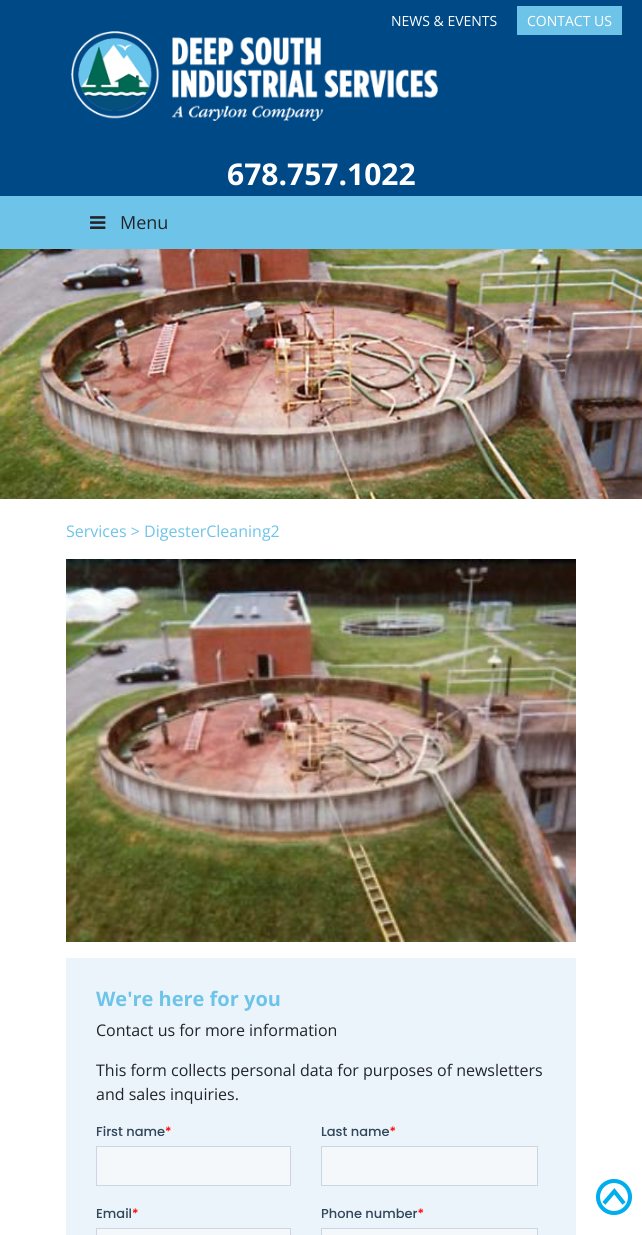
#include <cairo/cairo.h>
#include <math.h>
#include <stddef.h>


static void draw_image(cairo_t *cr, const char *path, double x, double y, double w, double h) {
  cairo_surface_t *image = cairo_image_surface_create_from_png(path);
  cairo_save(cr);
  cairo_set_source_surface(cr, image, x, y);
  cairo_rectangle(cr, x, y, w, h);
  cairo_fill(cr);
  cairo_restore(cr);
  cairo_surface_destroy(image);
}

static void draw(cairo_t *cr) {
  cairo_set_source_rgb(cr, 1, 1, 1);
  cairo_paint(cr);
  cairo_set_source_rgb(cr, 0, 73 / 255.0, 135 / 255.0);
  cairo_rectangle(cr, 0, 0, 642, 196);
  cairo_fill(cr);
  cairo_set_source_rgb(cr, 110 / 255.0, 196 / 255.0, 232 / 255.0);
  cairo_rectangle(cr, 517, 6, 105, 29);
  cairo_fill(cr);
  draw_image(cr, "images/1.png", 71, 31, 367, 90);
  cairo_rectangle(cr, 0, 196, 642, 53);
  cairo_fill(cr);
  draw_image(cr, "images/2.png", 90, 216, 16, 13);
  draw_image(cr, "images/3.png", 0, 249, 642, 250);
  draw_image(cr, "images/4.png", 66, 559, 510, 383);
  cairo_set_source_rgb(cr, 235 / 255.0, 244 / 255.0, 251 / 255.0);
  cairo_rectangle(cr, 66, 958, 510, 277);
  cairo_fill(cr);
  draw_image(cr, "images/5.png", 96, 1126, 442, 109);
  draw_image(cr, "images/6.png", 596, 1179, 36, 36);
  cairo_select_font_face(cr, "Open Sans", CAIRO_FONT_SLANT_NORMAL, CAIRO_FONT_WEIGHT_NORMAL);
  cairo_set_font_size(cr, 14);
  cairo_set_source_rgb(cr, 1, 1, 1);
  cairo_move_to(cr, 391, 26);
  cairo_show_text(cr, "NEWS & EVENTS");
  cairo_move_to(cr, 527, 26);
  cairo_show_text(cr, "CONTACT US");
  cairo_select_font_face(cr, "Open Sans", CAIRO_FONT_SLANT_NORMAL, CAIRO_FONT_WEIGHT_BOLD);
  cairo_set_font_size(cr, 30);
  cairo_move_to(cr, 227, 185);
  cairo_show_text(cr, "678.757.1022");
  cairo_select_font_face(cr, "Open Sans", CAIRO_FONT_SLANT_NORMAL, CAIRO_FONT_WEIGHT_NORMAL);
  cairo_set_font_size(cr, 18);
  cairo_set_source_rgb(cr, 33 / 255.0, 37 / 255.0, 41 / 255.0);
  cairo_move_to(cr, 120, 229);
  cairo_show_text(cr, "Menu");
  cairo_set_font_size(cr, 16);
  cairo_set_source_rgb(cr, 110 / 255.0, 196 / 255.0, 232 / 255.0);
  cairo_move_to(cr, 66, 537);
  cairo_show_text(cr, "Services > DigesterCleaning2");
  cairo_select_font_face(cr, "Open Sans", CAIRO_FONT_SLANT_NORMAL, CAIRO_FONT_WEIGHT_BOLD);
  cairo_set_font_size(cr, 20);
  cairo_move_to(cr, 96, 1006);
  cairo_show_text(cr, "We're here for you");
  cairo_select_font_face(cr, "Open Sans", CAIRO_FONT_SLANT_NORMAL, CAIRO_FONT_WEIGHT_NORMAL);
  cairo_set_font_size(cr, 16);
  cairo_set_source_rgb(cr, 33 / 255.0, 37 / 255.0, 41 / 255.0);
  cairo_move_to(cr, 96, 1036);
  cairo_show_text(cr, "Contact us for more information");
  cairo_move_to(cr, 96, 1076);
  cairo_show_text(cr, "This form collects personal data for purposes of newsletters");
  cairo_move_to(cr, 96, 1100);
  cairo_show_text(cr, "and sales inquiries.");
}

int main(void) {
  cairo_surface_t *surface = cairo_image_surface_create(CAIRO_FORMAT_RGB24, 642, 1235);
  cairo_t *cr = cairo_create(surface);
  cairo_font_options_t *options = cairo_font_options_create();
  cairo_font_options_set_hint_metrics(options, CAIRO_HINT_METRICS_OFF);
  cairo_font_options_set_hint_style(options, CAIRO_HINT_STYLE_NONE);
  cairo_set_font_options(cr, options);
  cairo_set_miter_limit(cr, 4);
  draw(cr);
  cairo_surface_write_to_png(surface, "out.png");
  cairo_font_options_destroy(options);
  cairo_destroy(cr);
  cairo_surface_destroy(surface);
  return 0;
}
